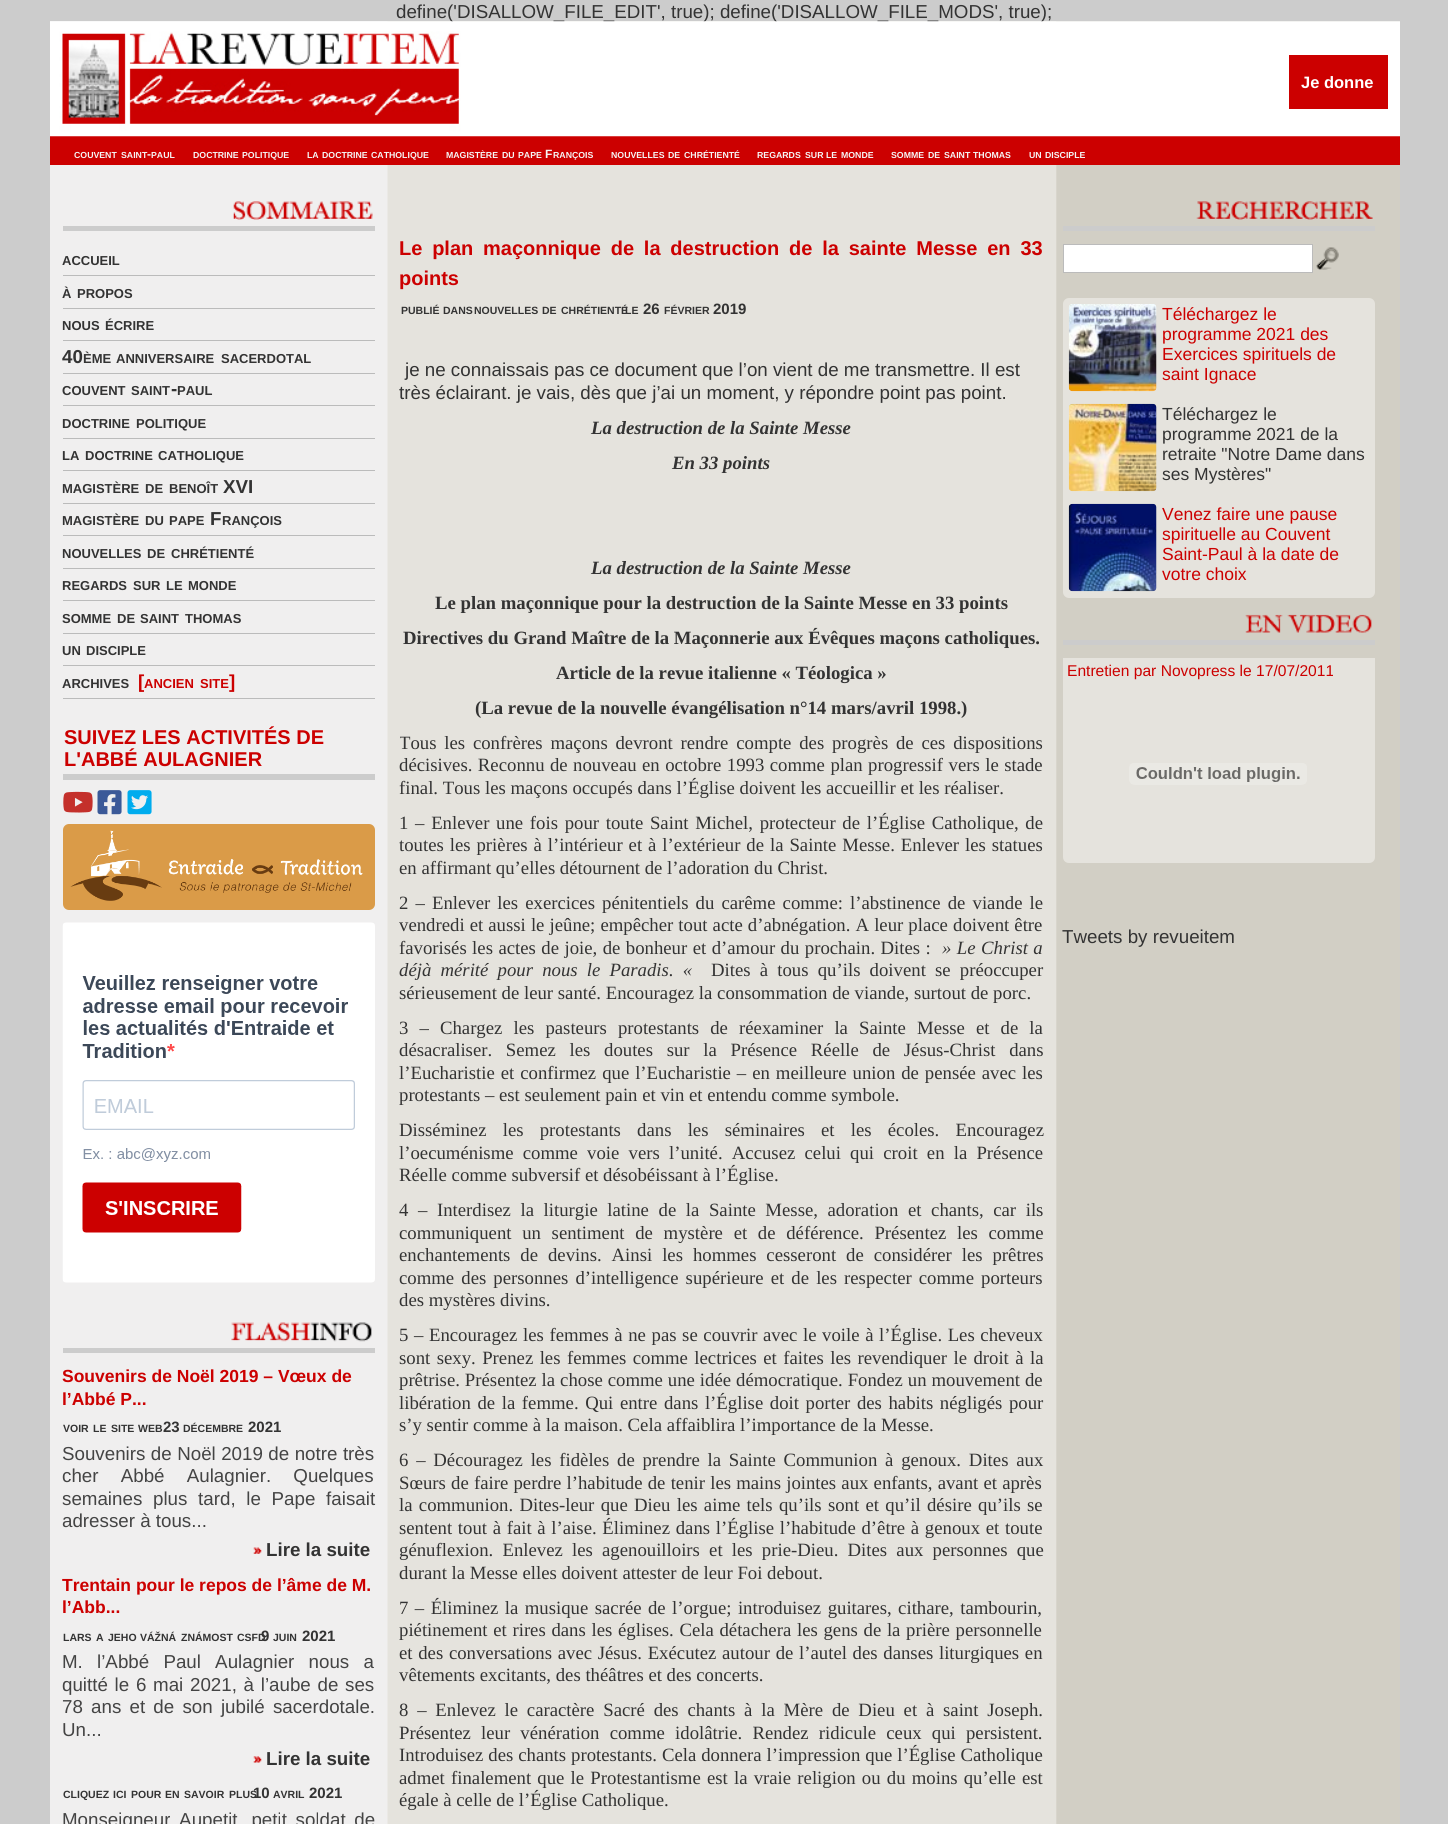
#include <cairo/cairo.h>
#include <math.h>
#include <stddef.h>


static void draw_spaced(cairo_t *cr, double x, double y, const char *s, double letter, double word) {
  cairo_move_to(cr, x, y);
  while (*s) {
    char ch[5] = {0};
    int n = 0;
    do ch[n++] = *s++; while ((*s & 0xC0) == 0x80);
    cairo_show_text(cr, ch);
    cairo_rel_move_to(cr, letter + word * (*ch == ' '), 0);
  }
}

static void rounded_rect(cairo_t *cr, double x, double y, double w, double h, double r) {
  cairo_new_sub_path(cr);
  cairo_arc(cr, x + w - r, y + h - r, r, 0, M_PI / 2);
  cairo_arc(cr, x + r, y + h - r, r, M_PI / 2, M_PI);
  cairo_arc(cr, x + r, y + r, r, M_PI, 1.5 * M_PI);
  cairo_arc(cr, x + w - r, y + r, r, 1.5 * M_PI, 2 * M_PI);
  cairo_close_path(cr);
}

static void draw_image(cairo_t *cr, const char *path, double x, double y, double w, double h) {
  cairo_surface_t *image = cairo_image_surface_create_from_png(path);
  cairo_save(cr);
  cairo_set_source_surface(cr, image, x, y);
  cairo_rectangle(cr, x, y, w, h);
  cairo_fill(cr);
  cairo_restore(cr);
  cairo_surface_destroy(image);
}

static void draw(cairo_t *cr) {
  cairo_set_source_rgb(cr, 204 / 255.0, 204 / 255.0, 204 / 255.0);
  cairo_paint(cr);
  draw_image(cr, "images/1.png", 50, 21, 1350, 1803);
  cairo_set_source_rgb(cr, 204 / 255.0, 0, 0);
  cairo_rectangle(cr, 50, 136, 1350, 29);
  cairo_fill(cr);
  cairo_set_source_rgb(cr, 204 / 255.0, 204 / 255.0, 204 / 255.0);
  cairo_rectangle(cr, 63, 226, 312, 5);
  cairo_fill(cr);
  draw_image(cr, "images/3.png", 233, 201, 140, 19);
  cairo_set_source_rgb(cr, 187 / 255.0, 187 / 255.0, 187 / 255.0);
  cairo_rectangle(cr, 63, 275, 312, 1);
  cairo_fill(cr);
  cairo_rectangle(cr, 63, 308, 312, 1);
  cairo_fill(cr);
  cairo_rectangle(cr, 63, 340, 312, 1);
  cairo_fill(cr);
  cairo_rectangle(cr, 63, 373, 312, 1);
  cairo_fill(cr);
  cairo_rectangle(cr, 63, 405, 312, 1);
  cairo_fill(cr);
  cairo_rectangle(cr, 63, 438, 312, 1);
  cairo_fill(cr);
  cairo_rectangle(cr, 63, 470, 312, 1);
  cairo_fill(cr);
  cairo_rectangle(cr, 63, 503, 312, 1);
  cairo_fill(cr);
  cairo_rectangle(cr, 63, 535, 312, 1);
  cairo_fill(cr);
  cairo_rectangle(cr, 63, 568, 312, 1);
  cairo_fill(cr);
  cairo_rectangle(cr, 63, 600, 312, 1);
  cairo_fill(cr);
  cairo_rectangle(cr, 63, 633, 312, 1);
  cairo_fill(cr);
  cairo_rectangle(cr, 63, 665, 312, 1);
  cairo_fill(cr);
  cairo_rectangle(cr, 63, 698, 312, 1);
  cairo_fill(cr);
  cairo_set_source_rgb(cr, 204 / 255.0, 204 / 255.0, 204 / 255.0);
  cairo_rectangle(cr, 63, 774, 312, 6);
  cairo_fill(cr);
  draw_image(cr, "images/4.png", 63, 791, 30, 22);
  draw_image(cr, "images/5.png", 97, 790, 25, 25);
  draw_image(cr, "images/6.png", 127, 790, 25, 25);
  cairo_set_source_rgb(cr, 218 / 255.0, 155 / 255.0, 72 / 255.0);
  rounded_rect(cr, 63, 824, 312, 86, 6);
  cairo_fill(cr);
  draw_image(cr, "images/7.png", 70, 830, 293, 71);
  draw_image(cr, "images/8.png", 62, 922, 313, 361);
  cairo_set_source_rgb(cr, 204 / 255.0, 204 / 255.0, 204 / 255.0);
  cairo_rectangle(cr, 63, 1348, 312, 5);
  cairo_fill(cr);
  draw_image(cr, "images/9.png", 231, 1322, 141, 20);
  draw_image(cr, "images/10.png", 253, 1547, 9, 7);
  draw_image(cr, "images/11.png", 253, 1756, 9, 7);
  cairo_rectangle(cr, 1063, 226, 312, 5);
  cairo_fill(cr);
  draw_image(cr, "images/12.png", 1196, 201, 177, 19);
  cairo_set_source_rgb(cr, 1, 1, 1);
  cairo_rectangle(cr, 1063.5, 244.5, 249, 28);
  cairo_fill_preserve(cr);
  cairo_set_source_rgb(cr, 187 / 255.0, 187 / 255.0, 187 / 255.0);
  cairo_set_line_width(cr, 1);
  cairo_stroke(cr);
  draw_image(cr, "images/13.png", 1316, 247, 23, 23);
  cairo_set_source_rgb(cr, 229 / 255.0, 227 / 255.0, 221 / 255.0);
  rounded_rect(cr, 1063, 298, 312, 300, 6);
  cairo_fill(cr);
  draw_image(cr, "images/14.png", 1068, 304, 89, 88);
  draw_image(cr, "images/15.png", 1068, 403, 89, 89);
  draw_image(cr, "images/16.png", 1068, 503, 89, 89);
  cairo_set_source_rgb(cr, 204 / 255.0, 204 / 255.0, 204 / 255.0);
  cairo_rectangle(cr, 1063, 640, 312, 5);
  cairo_fill(cr);
  draw_image(cr, "images/17.png", 1245, 614, 127, 19);
  cairo_set_source_rgb(cr, 229 / 255.0, 227 / 255.0, 221 / 255.0);
  cairo_new_path(cr);
  cairo_move_to(cr, 1063, 658);
  cairo_line_to(cr, 1375, 658);
  cairo_line_to(cr, 1375, 857);
  cairo_curve_to(cr, 1375, 860.5, 1372.5, 863, 1369, 863);
  cairo_line_to(cr, 1069, 863);
  cairo_curve_to(cr, 1065.5, 863, 1063, 860.5, 1063, 857);
  cairo_close_path(cr);
  cairo_fill(cr);
  draw_image(cr, "images/18.png", 1129, 763, 178, 22);
  cairo_select_font_face(cr, "Liberation Sans", CAIRO_FONT_SLANT_NORMAL, CAIRO_FONT_WEIGHT_NORMAL);
  cairo_set_font_size(cr, 18.75);
  cairo_set_source_rgb(cr, 51 / 255.0, 51 / 255.0, 51 / 255.0);
  cairo_move_to(cr, 396, 18);
  cairo_show_text(cr, "define('DISALLOW_FILE_EDIT', true); define('DISALLOW_FILE_MODS', true);");
  draw_image(cr, "images/2.png", 50, 21, 1350, 116);
  cairo_set_source_rgb(cr, 204 / 255.0, 0, 0);
  cairo_rectangle(cr, 1289, 55, 99, 54);
  cairo_fill(cr);
  cairo_select_font_face(cr, "Liberation Sans", CAIRO_FONT_SLANT_NORMAL, CAIRO_FONT_WEIGHT_BOLD);
  cairo_set_font_size(cr, 16.5);
  cairo_set_source_rgb(cr, 1, 1, 1);
  cairo_move_to(cr, 1301, 88);
  cairo_show_text(cr, "Je donne");
  cairo_set_font_size(cr, 8.75);
  cairo_set_source_rgb(cr, 245 / 255.0, 245 / 255.0, 245 / 255.0);
  cairo_move_to(cr, 74, 158);
  cairo_show_text(cr, "COUVENT");
  cairo_move_to(cr, 121, 158);
  cairo_show_text(cr, "SAINT");
  cairo_set_font_size(cr, 12);
  cairo_move_to(cr, 147, 158);
  cairo_show_text(cr, "-");
  cairo_set_font_size(cr, 8.75);
  cairo_move_to(cr, 151, 158);
  cairo_show_text(cr, "PAUL");
  cairo_move_to(cr, 193, 158);
  cairo_show_text(cr, "DOCTRINE");
  cairo_move_to(cr, 242, 158);
  cairo_show_text(cr, "POLITIQUE");
  cairo_move_to(cr, 307, 158);
  cairo_show_text(cr, "LA");
  cairo_move_to(cr, 322, 158);
  cairo_show_text(cr, "DOCTRINE");
  cairo_move_to(cr, 371, 158);
  cairo_show_text(cr, "CATHOLIQUE");
  cairo_move_to(cr, 446, 158);
  cairo_show_text(cr, "MAGISTÈRE");
  cairo_move_to(cr, 502, 158);
  cairo_show_text(cr, "DU");
  cairo_move_to(cr, 518, 158);
  cairo_show_text(cr, "PAPE");
  cairo_set_font_size(cr, 12);
  cairo_move_to(cr, 545, 158);
  cairo_show_text(cr, "F");
  cairo_set_font_size(cr, 8.75);
  cairo_move_to(cr, 553, 158);
  cairo_show_text(cr, "RANÇOIS");
  cairo_move_to(cr, 611, 158);
  cairo_show_text(cr, "NOUVELLES");
  cairo_move_to(cr, 668, 158);
  cairo_show_text(cr, "DE");
  cairo_move_to(cr, 684, 158);
  cairo_show_text(cr, "CHRÉTIENTÉ");
  cairo_move_to(cr, 757, 158);
  cairo_show_text(cr, "REGARDS");
  cairo_move_to(cr, 805, 158);
  cairo_show_text(cr, "SUR");
  cairo_move_to(cr, 826, 158);
  cairo_show_text(cr, "LE");
  cairo_move_to(cr, 841, 158);
  cairo_show_text(cr, "MONDE");
  cairo_move_to(cr, 891, 158);
  cairo_show_text(cr, "SOMME");
  cairo_move_to(cr, 928, 158);
  cairo_show_text(cr, "DE");
  cairo_move_to(cr, 944, 158);
  cairo_show_text(cr, "SAINT");
  cairo_move_to(cr, 973, 158);
  cairo_show_text(cr, "THOMAS");
  cairo_move_to(cr, 1029, 158);
  cairo_show_text(cr, "UN");
  cairo_move_to(cr, 1045, 158);
  cairo_show_text(cr, "DISCIPLE");
  cairo_set_font_size(cr, 13);
  cairo_set_source_rgb(cr, 51 / 255.0, 51 / 255.0, 51 / 255.0);
  cairo_move_to(cr, 62, 265);
  cairo_show_text(cr, "ACCUEIL");
  cairo_move_to(cr, 62, 298);
  cairo_show_text(cr, "À");
  cairo_move_to(cr, 77, 298);
  cairo_show_text(cr, "PROPOS");
  cairo_move_to(cr, 62, 330);
  cairo_show_text(cr, "NOUS");
  cairo_move_to(cr, 105, 330);
  cairo_show_text(cr, "ÉCRIRE");
  cairo_set_font_size(cr, 18.75);
  cairo_move_to(cr, 62, 363);
  cairo_show_text(cr, "40");
  cairo_set_font_size(cr, 13);
  cairo_move_to(cr, 83, 363);
  cairo_show_text(cr, "ÈME");
  cairo_move_to(cr, 116, 363);
  cairo_show_text(cr, "ANNIVERSAIRE");
  cairo_move_to(cr, 221, 363);
  cairo_show_text(cr, "SACERDOTAL");
  cairo_move_to(cr, 62, 395);
  cairo_show_text(cr, "COUVENT");
  cairo_move_to(cr, 131, 395);
  cairo_show_text(cr, "SAINT");
  cairo_set_font_size(cr, 18.75);
  cairo_move_to(cr, 171, 395);
  cairo_show_text(cr, "-");
  cairo_set_font_size(cr, 13);
  cairo_move_to(cr, 177, 395);
  cairo_show_text(cr, "PAUL");
  cairo_move_to(cr, 62, 428);
  cairo_show_text(cr, "DOCTRINE");
  cairo_move_to(cr, 136, 428);
  cairo_show_text(cr, "POLITIQUE");
  cairo_move_to(cr, 62, 460);
  cairo_show_text(cr, "LA");
  cairo_move_to(cr, 85, 460);
  cairo_show_text(cr, "DOCTRINE");
  cairo_move_to(cr, 158, 460);
  cairo_show_text(cr, "CATHOLIQUE");
  cairo_move_to(cr, 62, 493);
  cairo_show_text(cr, "MAGISTÈRE");
  cairo_move_to(cr, 145, 493);
  cairo_show_text(cr, "DE");
  cairo_move_to(cr, 169, 493);
  cairo_show_text(cr, "BENOÎT");
  cairo_set_font_size(cr, 18.75);
  cairo_move_to(cr, 223, 493);
  cairo_show_text(cr, "XVI");
  cairo_set_font_size(cr, 13);
  cairo_move_to(cr, 62, 525);
  cairo_show_text(cr, "MAGISTÈRE");
  cairo_move_to(cr, 145, 525);
  cairo_show_text(cr, "DU");
  cairo_move_to(cr, 169, 525);
  cairo_show_text(cr, "PAPE");
  cairo_set_font_size(cr, 18.75);
  cairo_move_to(cr, 210, 525);
  cairo_show_text(cr, "F");
  cairo_set_font_size(cr, 13);
  cairo_move_to(cr, 222, 525);
  cairo_show_text(cr, "RANÇOIS");
  cairo_move_to(cr, 62, 558);
  cairo_show_text(cr, "NOUVELLES");
  cairo_move_to(cr, 147, 558);
  cairo_show_text(cr, "DE");
  cairo_move_to(cr, 171, 558);
  cairo_show_text(cr, "CHRÉTIENTÉ");
  cairo_move_to(cr, 62, 590);
  cairo_show_text(cr, "REGARDS");
  cairo_move_to(cr, 133, 590);
  cairo_show_text(cr, "SUR");
  cairo_move_to(cr, 166, 590);
  cairo_show_text(cr, "LE");
  cairo_move_to(cr, 188, 590);
  cairo_show_text(cr, "MONDE");
  cairo_move_to(cr, 62, 623);
  cairo_show_text(cr, "SOMME");
  cairo_move_to(cr, 117, 623);
  cairo_show_text(cr, "DE");
  cairo_move_to(cr, 140, 623);
  cairo_show_text(cr, "SAINT");
  cairo_move_to(cr, 185, 623);
  cairo_show_text(cr, "THOMAS");
  cairo_move_to(cr, 62, 655);
  cairo_show_text(cr, "UN");
  cairo_move_to(cr, 86, 655);
  cairo_show_text(cr, "DISCIPLE");
  cairo_move_to(cr, 62, 688);
  cairo_show_text(cr, "ARCHIVES");
  cairo_set_font_size(cr, 18.75);
  cairo_set_source_rgb(cr, 204 / 255.0, 0, 0);
  cairo_move_to(cr, 138, 688);
  cairo_show_text(cr, "[");
  cairo_set_font_size(cr, 13);
  cairo_move_to(cr, 144, 688);
  cairo_show_text(cr, "ANCIEN");
  cairo_move_to(cr, 200, 688);
  cairo_show_text(cr, "SITE");
  cairo_set_font_size(cr, 18.75);
  cairo_move_to(cr, 229, 688);
  cairo_show_text(cr, "]");
  cairo_set_font_size(cr, 20);
  cairo_move_to(cr, 64, 744);
  cairo_show_text(cr, "SUIVEZ LES ACTIVITÉS DE");
  cairo_move_to(cr, 64, 766);
  cairo_show_text(cr, "L'ABBÉ AULAGNIER");
  cairo_set_font_size(cr, 17.5);
  cairo_move_to(cr, 62, 1382);
  cairo_show_text(cr, "Souvenirs de Noël 2019 – Vœux de");
  cairo_move_to(cr, 62, 1405);
  cairo_show_text(cr, "l’Abbé P...");
  cairo_set_font_size(cr, 10.5);
  cairo_set_source_rgb(cr, 51 / 255.0, 51 / 255.0, 51 / 255.0);
  cairo_move_to(cr, 63, 1432);
  cairo_show_text(cr, "VOIR");
  cairo_move_to(cr, 93, 1432);
  cairo_show_text(cr, "LE");
  cairo_move_to(cr, 111, 1432);
  cairo_show_text(cr, "SITE");
  cairo_move_to(cr, 138, 1432);
  cairo_show_text(cr, "WEB");
  cairo_set_font_size(cr, 15);
  cairo_move_to(cr, 163, 1432);
  cairo_show_text(cr, "23");
  cairo_set_font_size(cr, 10.5);
  cairo_move_to(cr, 183, 1432);
  cairo_show_text(cr, "DÉCEMBRE");
  cairo_set_font_size(cr, 15);
  cairo_move_to(cr, 248, 1432);
  cairo_show_text(cr, "2021");
  cairo_select_font_face(cr, "Liberation Sans", CAIRO_FONT_SLANT_NORMAL, CAIRO_FONT_WEIGHT_NORMAL);
  cairo_set_font_size(cr, 18.75);
  cairo_set_source_rgb(cr, 68 / 255.0, 68 / 255.0, 68 / 255.0);
  draw_spaced(cr, 62, 1460, "Souvenirs de Noël 2019 de notre très", 0, 0.25);
  draw_spaced(cr, 62, 1482, "cher Abbé Aulagnier. Quelques", 0, 17);
  draw_spaced(cr, 62, 1505, "semaines plus tard, le Pape faisait", 0, 5.5);
  cairo_move_to(cr, 62, 1527);
  cairo_show_text(cr, "adresser à tous...");
  cairo_select_font_face(cr, "Liberation Sans", CAIRO_FONT_SLANT_NORMAL, CAIRO_FONT_WEIGHT_BOLD);
  cairo_set_source_rgb(cr, 51 / 255.0, 51 / 255.0, 51 / 255.0);
  cairo_move_to(cr, 266, 1556);
  cairo_show_text(cr, "Lire la suite");
  cairo_set_font_size(cr, 17.5);
  cairo_set_source_rgb(cr, 204 / 255.0, 0, 0);
  cairo_move_to(cr, 62, 1591);
  cairo_show_text(cr, "Trentain pour le repos de l’âme de M.");
  cairo_move_to(cr, 62, 1613);
  cairo_show_text(cr, "l’Abb...");
  cairo_set_font_size(cr, 10.5);
  cairo_set_source_rgb(cr, 51 / 255.0, 51 / 255.0, 51 / 255.0);
  cairo_move_to(cr, 63, 1641);
  cairo_show_text(cr, "LARS");
  cairo_move_to(cr, 96, 1641);
  cairo_show_text(cr, "A");
  cairo_move_to(cr, 108, 1641);
  cairo_show_text(cr, "JEHO");
  cairo_move_to(cr, 140, 1641);
  cairo_show_text(cr, "VÁŽNÁ");
  cairo_move_to(cr, 181, 1641);
  cairo_show_text(cr, "ZNÁMOST");
  cairo_set_font_size(cr, 15);
  cairo_move_to(cr, 302, 1641);
  cairo_show_text(cr, "2021");
  cairo_set_font_size(cr, 10.5);
  cairo_move_to(cr, 237, 1641);
  cairo_show_text(cr, "CSFD");
  cairo_set_font_size(cr, 15);
  cairo_move_to(cr, 261, 1641);
  cairo_show_text(cr, "9");
  cairo_set_font_size(cr, 10.5);
  cairo_move_to(cr, 273, 1641);
  cairo_show_text(cr, "JUIN");
  cairo_select_font_face(cr, "Liberation Sans", CAIRO_FONT_SLANT_NORMAL, CAIRO_FONT_WEIGHT_NORMAL);
  cairo_set_font_size(cr, 18.75);
  cairo_set_source_rgb(cr, 68 / 255.0, 68 / 255.0, 68 / 255.0);
  draw_spaced(cr, 62, 1668, "M. l’Abbé Paul Aulagnier nous a", 0, 9);
  draw_spaced(cr, 62, 1691, "quitté le 6 mai 2021, à l’aube de ses", 0, 1.5);
  draw_spaced(cr, 62, 1713, "78 ans et de son jubilé sacerdotale.", 0, 3);
  cairo_move_to(cr, 62, 1736);
  cairo_show_text(cr, "Un...");
  cairo_select_font_face(cr, "Liberation Sans", CAIRO_FONT_SLANT_NORMAL, CAIRO_FONT_WEIGHT_BOLD);
  cairo_set_source_rgb(cr, 51 / 255.0, 51 / 255.0, 51 / 255.0);
  cairo_move_to(cr, 266, 1765);
  cairo_show_text(cr, "Lire la suite");
  cairo_set_font_size(cr, 10.5);
  cairo_move_to(cr, 63, 1798);
  cairo_show_text(cr, "CLIQUEZ");
  cairo_move_to(cr, 113, 1798);
  cairo_show_text(cr, "ICI");
  cairo_move_to(cr, 131, 1798);
  cairo_show_text(cr, "POUR");
  cairo_move_to(cr, 165, 1798);
  cairo_show_text(cr, "EN");
  cairo_move_to(cr, 184, 1798);
  cairo_show_text(cr, "SAVOIR");
  cairo_move_to(cr, 229, 1798);
  cairo_show_text(cr, "PLUS");
  cairo_set_font_size(cr, 15);
  cairo_move_to(cr, 253, 1798);
  cairo_show_text(cr, "10");
  cairo_set_font_size(cr, 10.5);
  cairo_move_to(cr, 273, 1798);
  cairo_show_text(cr, "AVRIL");
  cairo_set_font_size(cr, 15);
  cairo_move_to(cr, 309, 1798);
  cairo_show_text(cr, "2021");
  cairo_select_font_face(cr, "Liberation Sans", CAIRO_FONT_SLANT_NORMAL, CAIRO_FONT_WEIGHT_NORMAL);
  cairo_set_font_size(cr, 18.75);
  cairo_set_source_rgb(cr, 68 / 255.0, 68 / 255.0, 68 / 255.0);
  draw_spaced(cr, 62, 1826, "Monseigneur Aupetit, petit soldat de", 0, 3.5);
  cairo_select_font_face(cr, "Liberation Sans", CAIRO_FONT_SLANT_NORMAL, CAIRO_FONT_WEIGHT_BOLD);
  cairo_set_font_size(cr, 20);
  cairo_set_source_rgb(cr, 204 / 255.0, 0, 0);
  draw_spaced(cr, 399, 255, "Le plan maçonnique de la destruction de la sainte Messe en 33", 0, 4.25);
  cairo_move_to(cr, 399, 285);
  cairo_show_text(cr, "points");
  cairo_set_font_size(cr, 10.5);
  cairo_set_source_rgb(cr, 51 / 255.0, 51 / 255.0, 51 / 255.0);
  cairo_move_to(cr, 401, 314);
  cairo_show_text(cr, "PUBLIÉ");
  cairo_move_to(cr, 443, 314);
  cairo_show_text(cr, "DANS");
  cairo_move_to(cr, 474, 314);
  cairo_show_text(cr, "NOUVELLES");
  cairo_move_to(cr, 542, 314);
  cairo_show_text(cr, "DE");
  cairo_move_to(cr, 561, 314);
  cairo_show_text(cr, "CHRÉTIENTÉ");
  cairo_move_to(cr, 625, 314);
  cairo_show_text(cr, "LE");
  cairo_set_font_size(cr, 15);
  cairo_move_to(cr, 643, 314);
  cairo_show_text(cr, "26");
  cairo_set_font_size(cr, 10.5);
  cairo_move_to(cr, 664, 314);
  cairo_show_text(cr, "FÉVRIER");
  cairo_set_font_size(cr, 15);
  cairo_move_to(cr, 713, 314);
  cairo_show_text(cr, "2019");
  cairo_select_font_face(cr, "Liberation Sans", CAIRO_FONT_SLANT_NORMAL, CAIRO_FONT_WEIGHT_NORMAL);
  cairo_set_font_size(cr, 18.75);
  cairo_move_to(cr, 405, 376);
  cairo_show_text(cr, "je ne connaissais pas ce document que l’on vient de me transmettre. Il est");
  cairo_move_to(cr, 399, 399);
  cairo_show_text(cr, "très éclairant. je vais, dès que j’ai un moment, y répondre point pas point.");
  cairo_select_font_face(cr, "Liberation Serif", CAIRO_FONT_SLANT_ITALIC, CAIRO_FONT_WEIGHT_BOLD);
  cairo_move_to(cr, 591, 434);
  cairo_show_text(cr, "La destruction de la Sainte Messe");
  cairo_move_to(cr, 672, 469);
  cairo_show_text(cr, "En 33 points");
  cairo_move_to(cr, 591, 574);
  cairo_show_text(cr, "La destruction de la Sainte Messe");
  cairo_select_font_face(cr, "Liberation Serif", CAIRO_FONT_SLANT_NORMAL, CAIRO_FONT_WEIGHT_BOLD);
  cairo_move_to(cr, 435, 609);
  cairo_show_text(cr, "Le plan maçonnique pour la destruction de la Sainte Messe en 33 points");
  cairo_move_to(cr, 403, 644);
  cairo_show_text(cr, "Directives du Grand Maître de la Maçonnerie aux Évêques maçons catholiques.");
  cairo_move_to(cr, 556, 679);
  cairo_show_text(cr, "Article de la revue italienne « Téologica »");
  cairo_move_to(cr, 475, 714);
  cairo_show_text(cr, "(La revue de la nouvelle évangélisation n°14 mars/avril 1998.)");
  cairo_save(cr);
  cairo_rectangle(cr, 400, 190, 644, 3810);
  cairo_clip(cr);
  cairo_select_font_face(cr, "Liberation Serif", CAIRO_FONT_SLANT_NORMAL, CAIRO_FONT_WEIGHT_NORMAL);
  draw_spaced(cr, 399, 749, "Tous les confrères maçons devront rendre compte des progrès de ces dispositions", 0, 3.1);
  cairo_restore(cr);
  cairo_select_font_face(cr, "Liberation Serif", CAIRO_FONT_SLANT_NORMAL, CAIRO_FONT_WEIGHT_NORMAL);
  draw_spaced(cr, 399, 771, "décisives. Reconnu de nouveau en octobre 1993 comme plan progressif vers le stade", 0, 0.75);
  cairo_move_to(cr, 399, 794);
  cairo_show_text(cr, "final. Tous les maçons occupés dans l’Église doivent les accueillir et les réaliser.");
  draw_spaced(cr, 399, 829, "1 – Enlever une fois pour toute Saint Michel, protecteur de l’Église Catholique, de", 0, 2);
  draw_spaced(cr, 399, 851, "toutes les prières à l’intérieur et à l’extérieur de la Sainte Messe. Enlever les statues", 0, 1.25);
  cairo_move_to(cr, 399, 874);
  cairo_show_text(cr, "en affirmant qu’elles détournent de l’adoration du Christ.");
  draw_spaced(cr, 399, 909, "2 – Enlever les exercices pénitentiels du carême comme: l’abstinence de viande le", 0, 2.4);
  draw_spaced(cr, 399, 931, "vendredi et aussi le jeûne; empêcher tout acte d’abnégation. A leur place doivent être", 0, 0.4);
  draw_spaced(cr, 399, 954, "favorisés les actes de joie, de bonheur et d’amour du prochain. Dites :", 0, 0.75);
  cairo_select_font_face(cr, "Liberation Serif", CAIRO_FONT_SLANT_ITALIC, CAIRO_FONT_WEIGHT_NORMAL);
  draw_spaced(cr, 942, 954, "» Le Christ a", 0, 0.75);
  draw_spaced(cr, 399, 976, "déjà mérité pour nous le Paradis. «", 0, 4.5);
  cairo_select_font_face(cr, "Liberation Serif", CAIRO_FONT_SLANT_NORMAL, CAIRO_FONT_WEIGHT_NORMAL);
  draw_spaced(cr, 711, 976, "Dites à tous qu’ils doivent se préoccuper", 0, 4.5);
  cairo_move_to(cr, 399, 999);
  cairo_show_text(cr, "sérieusement de leur santé. Encouragez la consommation de viande, surtout de porc.");
  draw_spaced(cr, 399, 1034, "3 – Chargez les pasteurs protestants de réexaminer la Sainte Messe et de la", 0, 6.4);
  draw_spaced(cr, 399, 1056, "désacraliser. Semez les doutes sur la Présence Réelle de Jésus-Christ dans", 0, 9);
  draw_spaced(cr, 399, 1079, "l’Eucharistie et confirmez que l’Eucharistie – en meilleure union de pensée avec les", 0, 1.25);
  cairo_move_to(cr, 399, 1101);
  cairo_show_text(cr, "protestants – est seulement pain et vin et entendu comme symbole.");
  draw_spaced(cr, 399, 1136, "Disséminez les protestants dans les séminaires et les écoles. Encouragez", 0, 11.5);
  draw_spaced(cr, 399, 1159, "l’oecuménisme comme voie vers l’unité. Accusez celui qui croit en la Présence", 0, 4.5);
  cairo_move_to(cr, 399, 1181);
  cairo_show_text(cr, "Réelle comme subversif et désobéissant à l’Église.");
  draw_spaced(cr, 399, 1216, "4 – Interdisez la liturgie latine de la Sainte Messe, adoration et chants, car ils", 0, 4.9);
  draw_spaced(cr, 399, 1239, "communiquent un sentiment de mystère et de déférence. Présentez les comme", 0, 6);
  draw_spaced(cr, 399, 1261, "enchantements de devins. Ainsi les hommes cesseront de considérer les prêtres", 0, 5.25);
  draw_spaced(cr, 399, 1284, "comme des personnes d’intelligence supérieure et de les respecter comme porteurs", 0, 2.4);
  cairo_move_to(cr, 399, 1306);
  cairo_show_text(cr, "des mystères divins.");
  draw_spaced(cr, 399, 1341, "5 – Encouragez les femmes à ne pas se couvrir avec le voile à l’Église. Les cheveux", 0, 0.9);
  draw_spaced(cr, 399, 1364, "sont sexy. Prenez les femmes comme lectrices et faites les revendiquer le droit à la", 0, 1.75);
  draw_spaced(cr, 399, 1386, "prêtrise. Présentez la chose comme une idée démocratique. Fondez un mouvement de", 0, 0.25);
  draw_spaced(cr, 399, 1409, "libération de la femme. Qui entre dans l’Église doit porter des habits négligés pour", 0, 1.9);
  cairo_move_to(cr, 399, 1431);
  cairo_show_text(cr, "s’y sentir comme à la maison. Cela affaiblira l’importance de la Messe.");
  draw_spaced(cr, 399, 1466, "6 – Découragez les fidèles de prendre la Sainte Communion à genoux. Dites aux", 0, 3.1);
  draw_spaced(cr, 399, 1489, "Sœurs de faire perdre l’habitude de tenir les mains jointes aux enfants, avant et après", 0, 0.5);
  draw_spaced(cr, 399, 1511, "la communion. Dites-leur que Dieu les aime tels qu’ils sont et qu’il désire qu’ils se", 0, 1.6);
  draw_spaced(cr, 399, 1534, "sentent tout à fait à l’aise. Éliminez dans l’Église l’habitude d’être à genoux et toute", 0, 1);
  draw_spaced(cr, 399, 1556, "génuflexion. Enlevez les agenouilloirs et les prie-Dieu. Dites aux personnes que", 0, 4.5);
  cairo_move_to(cr, 399, 1579);
  cairo_show_text(cr, "durant la Messe elles doivent attester de leur Foi debout.");
  draw_spaced(cr, 399, 1614, "7 – Éliminez la musique sacrée de l’orgue; introduisez guitares, cithare, tambourin,", 0, 1.75);
  draw_spaced(cr, 399, 1636, "piétinement et rires dans les églises. Cela détachera les gens de la prière personnelle", 0, 1);
  draw_spaced(cr, 399, 1659, "et des conversations avec Jésus. Exécutez autour de l’autel des danses liturgiques en", 0, 1);
  cairo_move_to(cr, 399, 1681);
  cairo_show_text(cr, "vêtements excitants, des théâtres et des concerts.");
  draw_spaced(cr, 399, 1716, "8 – Enlevez le caractère Sacré des chants à la Mère de Dieu et à saint Joseph.", 0, 4.1);
  draw_spaced(cr, 399, 1739, "Présentez leur vénération comme idolâtrie. Rendez ridicule ceux qui persistent.", 0, 5.5);
  draw_spaced(cr, 399, 1761, "Introduisez des chants protestants. Cela donnera l’impression que l’Église Catholique", 0, 0.25);
  draw_spaced(cr, 399, 1784, "admet finalement que le Protestantisme est la vraie religion ou du moins qu’elle est", 0, 1.5);
  cairo_move_to(cr, 399, 1806);
  cairo_show_text(cr, "égale à celle de l’Église Catholique.");
  cairo_select_font_face(cr, "Liberation Sans", CAIRO_FONT_SLANT_NORMAL, CAIRO_FONT_WEIGHT_NORMAL);
  cairo_set_font_size(cr, 17.5);
  cairo_set_source_rgb(cr, 204 / 255.0, 0, 0);
  cairo_move_to(cr, 1162, 320);
  cairo_show_text(cr, "Téléchargez le");
  cairo_move_to(cr, 1162, 340);
  cairo_show_text(cr, "programme 2021 des");
  cairo_move_to(cr, 1162, 360);
  cairo_show_text(cr, "Exercices spirituels de");
  cairo_move_to(cr, 1162, 380);
  cairo_show_text(cr, "saint Ignace");
  cairo_set_source_rgb(cr, 51 / 255.0, 51 / 255.0, 51 / 255.0);
  cairo_move_to(cr, 1162, 420);
  cairo_show_text(cr, "Téléchargez le");
  cairo_move_to(cr, 1162, 440);
  cairo_show_text(cr, "programme 2021 de la");
  cairo_move_to(cr, 1162, 460);
  cairo_show_text(cr, "retraite \"Notre Dame dans");
  cairo_move_to(cr, 1162, 480);
  cairo_show_text(cr, "ses Mystères\"");
  cairo_set_source_rgb(cr, 204 / 255.0, 0, 0);
  cairo_move_to(cr, 1162, 520);
  cairo_show_text(cr, "Venez faire une pause");
  cairo_move_to(cr, 1162, 540);
  cairo_show_text(cr, "spirituelle au Couvent");
  cairo_move_to(cr, 1162, 560);
  cairo_show_text(cr, "Saint-Paul à la date de");
  cairo_move_to(cr, 1162, 580);
  cairo_show_text(cr, "votre choix");
  cairo_set_font_size(cr, 15.6);
  cairo_move_to(cr, 1067, 676);
  cairo_show_text(cr, "Entretien par Novopress le 17/07/2011");
  cairo_set_font_size(cr, 18.75);
  cairo_set_source_rgb(cr, 51 / 255.0, 51 / 255.0, 51 / 255.0);
  cairo_move_to(cr, 1062, 943);
  cairo_show_text(cr, "Tweets by revueitem");
}

int main(void) {
  cairo_surface_t *surface = cairo_image_surface_create(CAIRO_FORMAT_RGB24, 1448, 1824);
  cairo_t *cr = cairo_create(surface);
  cairo_font_options_t *options = cairo_font_options_create();
  cairo_font_options_set_hint_metrics(options, CAIRO_HINT_METRICS_OFF);
  cairo_font_options_set_hint_style(options, CAIRO_HINT_STYLE_NONE);
  cairo_set_font_options(cr, options);
  cairo_set_miter_limit(cr, 4);
  draw(cr);
  cairo_surface_write_to_png(surface, "out.png");
  cairo_font_options_destroy(options);
  cairo_destroy(cr);
  cairo_surface_destroy(surface);
  return 0;
}
